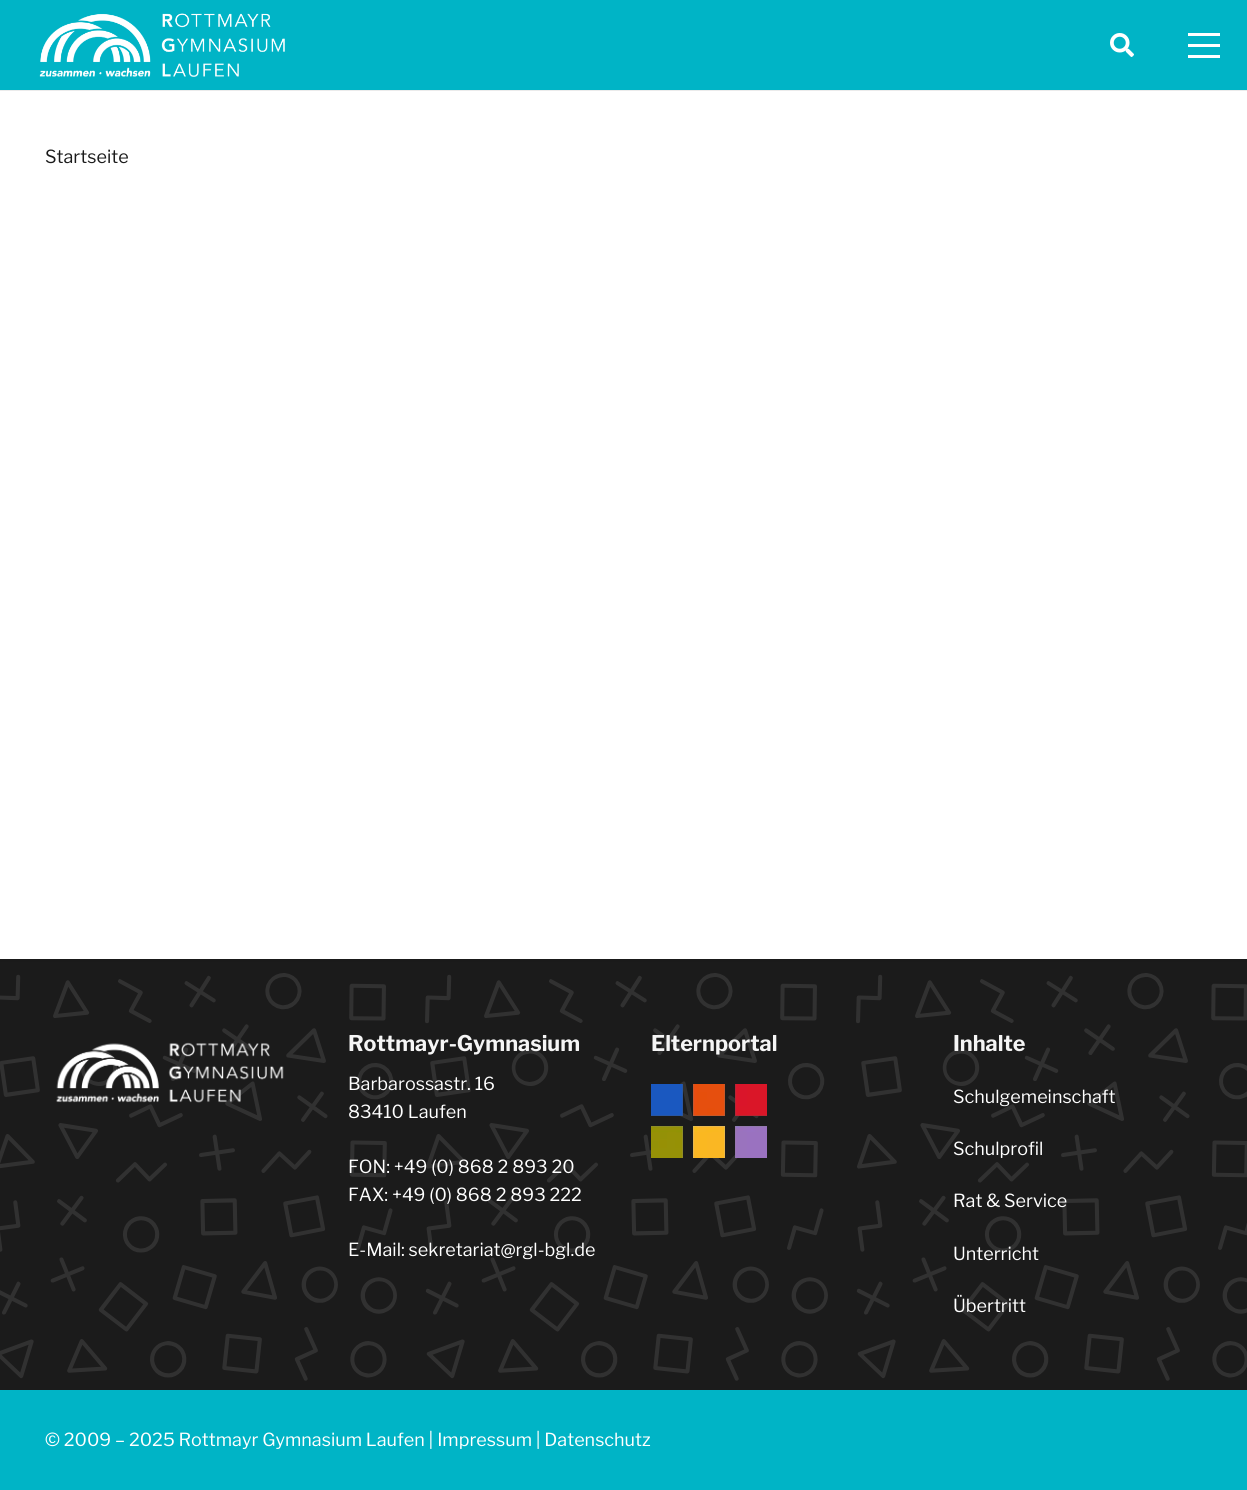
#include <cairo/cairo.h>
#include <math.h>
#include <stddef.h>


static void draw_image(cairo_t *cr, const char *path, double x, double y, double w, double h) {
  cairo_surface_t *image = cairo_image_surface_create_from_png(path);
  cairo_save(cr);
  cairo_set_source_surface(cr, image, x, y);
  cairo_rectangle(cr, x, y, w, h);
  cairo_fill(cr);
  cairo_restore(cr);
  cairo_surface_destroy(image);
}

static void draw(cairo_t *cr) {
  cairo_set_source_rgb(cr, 1, 1, 1);
  cairo_paint(cr);
  cairo_set_source_rgb(cr, 235 / 255.0, 235 / 255.0, 235 / 255.0);
  cairo_rectangle(cr, 0, 90, 1247, 1);
  cairo_fill(cr);
  cairo_set_source_rgb(cr, 0, 180 / 255.0, 198 / 255.0);
  cairo_rectangle(cr, 0, 0, 1247, 90);
  cairo_fill(cr);
  draw_image(cr, "images/1.png", 39, 13, 246, 64);
  draw_image(cr, "images/2.png", 1110, 33, 24, 24);
  cairo_set_source_rgb(cr, 1, 1, 1);
  cairo_rectangle(cr, 1188, 44, 32, 3);
  cairo_fill(cr);
  cairo_rectangle(cr, 1188, 33, 32, 3);
  cairo_fill(cr);
  cairo_rectangle(cr, 1188, 55, 32, 3);
  cairo_fill(cr);
  cairo_set_source_rgb(cr, 26 / 255.0, 26 / 255.0, 26 / 255.0);
  cairo_rectangle(cr, 0, 959, 1247, 3);
  cairo_fill(cr);
  draw_image(cr, "images/3.png", 0, 961, 1247, 429);
  draw_image(cr, "images/4.png", 56, 1042, 228, 61);
  draw_image(cr, "images/5.png", 651, 1084, 116, 74);
  cairo_set_source_rgb(cr, 0, 180 / 255.0, 198 / 255.0);
  cairo_rectangle(cr, 0, 1390, 1247, 100);
  cairo_fill(cr);
  cairo_select_font_face(cr, "Libre Franklin Thin", CAIRO_FONT_SLANT_NORMAL, CAIRO_FONT_WEIGHT_NORMAL);
  cairo_set_font_size(cr, 18);
  cairo_set_source_rgb(cr, 26 / 255.0, 26 / 255.0, 26 / 255.0);
  cairo_move_to(cr, 45, 163);
  cairo_show_text(cr, "Startseite");
  cairo_select_font_face(cr, "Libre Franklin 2 Thin", CAIRO_FONT_SLANT_NORMAL, CAIRO_FONT_WEIGHT_NORMAL);
  cairo_set_font_size(cr, 21.6);
  cairo_set_source_rgb(cr, 245 / 255.0, 245 / 255.0, 245 / 255.0);
  cairo_move_to(cr, 348, 1051);
  cairo_show_text(cr, "Rottmayr-Gymnasium");
  cairo_select_font_face(cr, "Libre Franklin Thin", CAIRO_FONT_SLANT_NORMAL, CAIRO_FONT_WEIGHT_NORMAL);
  cairo_set_font_size(cr, 18);
  cairo_set_source_rgb(cr, 1, 1, 1);
  cairo_move_to(cr, 348, 1090);
  cairo_show_text(cr, "Barbarossastr. 16");
  cairo_move_to(cr, 348, 1118);
  cairo_show_text(cr, "83410 Laufen");
  cairo_move_to(cr, 348, 1173);
  cairo_show_text(cr, "FON: +49 (0) 868 2 893 20");
  cairo_move_to(cr, 348, 1201);
  cairo_show_text(cr, "FAX: +49 (0) 868 2 893 222");
  cairo_move_to(cr, 348, 1256);
  cairo_show_text(cr, "E-Mail: sekretariat@rgl-bgl.de");
  cairo_select_font_face(cr, "Libre Franklin 2 Thin", CAIRO_FONT_SLANT_NORMAL, CAIRO_FONT_WEIGHT_NORMAL);
  cairo_set_font_size(cr, 21.6);
  cairo_set_source_rgb(cr, 245 / 255.0, 245 / 255.0, 245 / 255.0);
  cairo_move_to(cr, 651, 1051);
  cairo_show_text(cr, "Elternportal");
  cairo_move_to(cr, 953, 1051);
  cairo_show_text(cr, "Inhalte");
  cairo_select_font_face(cr, "Libre Franklin Thin", CAIRO_FONT_SLANT_NORMAL, CAIRO_FONT_WEIGHT_NORMAL);
  cairo_set_font_size(cr, 18);
  cairo_set_source_rgb(cr, 1, 1, 1);
  cairo_move_to(cr, 953, 1103);
  cairo_show_text(cr, "Schulgemeinschaft");
  cairo_move_to(cr, 953, 1155);
  cairo_show_text(cr, "Schulprofil");
  cairo_move_to(cr, 953, 1207);
  cairo_show_text(cr, "Rat & Service");
  cairo_move_to(cr, 953, 1260);
  cairo_show_text(cr, "Unterricht");
  cairo_move_to(cr, 953, 1312);
  cairo_show_text(cr, "Übertritt");
  cairo_move_to(cr, 45, 1446);
  cairo_show_text(cr, "© 2009 – 2025 Rottmayr Gymnasium Laufen | Impressum | Datenschutz");
}

int main(void) {
  cairo_surface_t *surface = cairo_image_surface_create(CAIRO_FORMAT_RGB24, 1247, 1490);
  cairo_t *cr = cairo_create(surface);
  cairo_font_options_t *options = cairo_font_options_create();
  cairo_font_options_set_hint_metrics(options, CAIRO_HINT_METRICS_OFF);
  cairo_font_options_set_hint_style(options, CAIRO_HINT_STYLE_NONE);
  cairo_set_font_options(cr, options);
  cairo_set_miter_limit(cr, 4);
  draw(cr);
  cairo_surface_write_to_png(surface, "out.png");
  cairo_font_options_destroy(options);
  cairo_destroy(cr);
  cairo_surface_destroy(surface);
  return 0;
}
